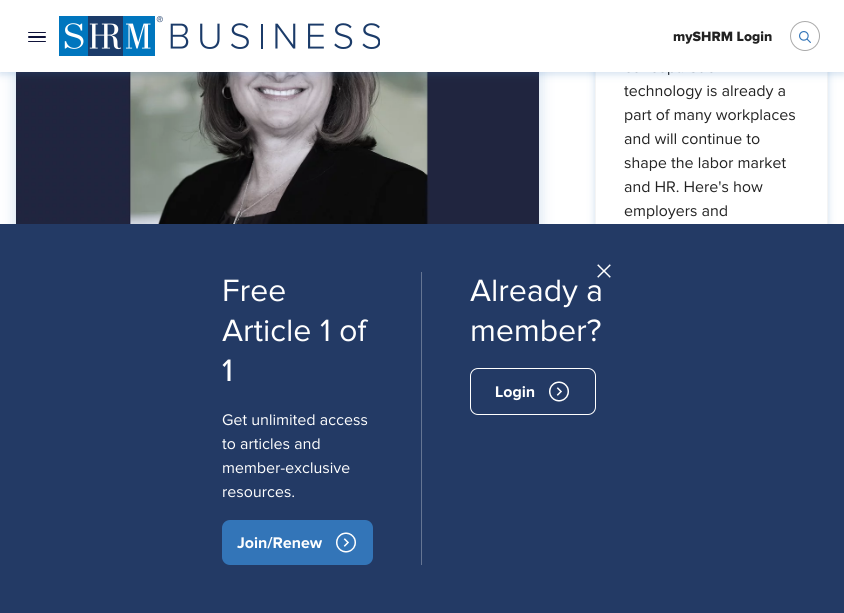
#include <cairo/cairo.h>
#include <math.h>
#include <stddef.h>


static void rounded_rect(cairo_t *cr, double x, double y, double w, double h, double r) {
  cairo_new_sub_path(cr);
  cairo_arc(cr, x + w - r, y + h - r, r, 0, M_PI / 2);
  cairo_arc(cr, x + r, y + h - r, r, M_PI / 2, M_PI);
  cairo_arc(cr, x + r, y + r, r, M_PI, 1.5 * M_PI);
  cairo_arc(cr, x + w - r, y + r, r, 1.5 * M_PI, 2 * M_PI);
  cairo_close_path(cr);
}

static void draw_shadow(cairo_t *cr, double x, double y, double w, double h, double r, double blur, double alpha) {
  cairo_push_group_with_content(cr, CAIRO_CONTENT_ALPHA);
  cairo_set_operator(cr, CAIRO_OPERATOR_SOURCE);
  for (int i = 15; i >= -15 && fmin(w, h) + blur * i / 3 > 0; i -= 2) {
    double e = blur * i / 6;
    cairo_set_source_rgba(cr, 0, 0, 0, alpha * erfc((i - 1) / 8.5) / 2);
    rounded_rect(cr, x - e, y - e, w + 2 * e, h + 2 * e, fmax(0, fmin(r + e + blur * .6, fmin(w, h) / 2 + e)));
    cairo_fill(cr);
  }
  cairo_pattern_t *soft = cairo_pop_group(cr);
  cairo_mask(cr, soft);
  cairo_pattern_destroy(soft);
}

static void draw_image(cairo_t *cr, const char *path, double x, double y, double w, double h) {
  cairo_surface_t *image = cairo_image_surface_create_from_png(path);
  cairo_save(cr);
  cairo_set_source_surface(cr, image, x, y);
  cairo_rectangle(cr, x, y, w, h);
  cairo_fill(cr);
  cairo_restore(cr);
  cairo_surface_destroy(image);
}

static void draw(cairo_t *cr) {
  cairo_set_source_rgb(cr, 1, 1, 1);
  cairo_paint(cr);
  cairo_set_source_rgb(cr, 51 / 255.0, 117 / 255.0, 184 / 255.0);
  draw_shadow(cr, 16, -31, 523, 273, 8, 7.5, 0.25);
  draw_image(cr, "images/1.png", 16, 72, 523, 152);
  cairo_save(cr);
  cairo_set_fill_rule(cr, CAIRO_FILL_RULE_EVEN_ODD);
  cairo_new_path(cr);
  cairo_move_to(cr, 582, 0);
  cairo_line_to(cr, 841, 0);
  cairo_line_to(cr, 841, 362);
  cairo_line_to(cr, 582, 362);
  cairo_close_path(cr);
  cairo_move_to(cr, 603, -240);
  cairo_line_to(cr, 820, -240);
  cairo_curve_to(cr, 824.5, -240, 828, -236.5, 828, -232);
  cairo_line_to(cr, 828, 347);
  cairo_line_to(cr, 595, 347);
  cairo_line_to(cr, 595, -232);
  cairo_curve_to(cr, 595, -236.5, 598.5, -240, 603, -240);
  cairo_close_path(cr);
  cairo_clip(cr);
  draw_shadow(cr, 595, -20, 233, 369, 8, 4, 0.24);
  cairo_restore(cr);
  cairo_set_source_rgb(cr, 244 / 255.0, 244 / 255.0, 244 / 255.0);
  cairo_set_fill_rule(cr, CAIRO_FILL_RULE_EVEN_ODD);
  cairo_new_path(cr);
  cairo_move_to(cr, 603, -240);
  cairo_line_to(cr, 820, -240);
  cairo_curve_to(cr, 824, -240, 828, -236, 828, -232);
  cairo_line_to(cr, 828, 347);
  cairo_line_to(cr, 595, 347);
  cairo_line_to(cr, 595, -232);
  cairo_curve_to(cr, 595, -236, 599, -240, 603, -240);
  cairo_close_path(cr);
  cairo_move_to(cr, 603, -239);
  cairo_line_to(cr, 820, -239);
  cairo_curve_to(cr, 824, -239, 827, -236, 827, -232);
  cairo_line_to(cr, 827, 347);
  cairo_line_to(cr, 596, 347);
  cairo_line_to(cr, 596, -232);
  cairo_curve_to(cr, 596, -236, 599, -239, 603, -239);
  cairo_close_path(cr);
  cairo_fill(cr);
  draw_image(cr, "images/2.png", 627, 72, 86, 3);
  draw_image(cr, "images/3.png", 624, 85, 161, 15);
  draw_image(cr, "images/4.png", 625, 109, 170, 15);
  draw_image(cr, "images/5.png", 624, 133, 136, 12);
  draw_image(cr, "images/6.png", 624, 157, 162, 14);
  draw_image(cr, "images/7.png", 624, 181, 139, 12);
  draw_image(cr, "images/8.png", 624, 205, 103, 15);
  cairo_set_source_rgb(cr, 51 / 255.0, 117 / 255.0, 184 / 255.0);
  draw_shadow(cr, 0, 2, 844, 72, 0, 4, 0.24);
  cairo_set_source_rgb(cr, 1, 1, 1);
  cairo_rectangle(cr, 0, 0, 844, 72);
  cairo_fill(cr);
  cairo_set_source_rgb(cr, 15 / 255.0, 19 / 255.0, 58 / 255.0);
  rounded_rect(cr, 28, 32, 18, 1, 0.5);
  cairo_fill(cr);
  rounded_rect(cr, 28, 36, 18, 2, 1);
  cairo_fill(cr);
  rounded_rect(cr, 28, 41, 18, 1, 0.5);
  cairo_fill(cr);
  draw_image(cr, "images/9.png", 59, 16, 321, 40);
  cairo_arc(cr, 805, 36, 14.5, 0, 2 * M_PI);
  cairo_set_source_rgb(cr, 170 / 255.0, 170 / 255.0, 170 / 255.0);
  cairo_set_line_width(cr, 1);
  cairo_stroke(cr);
  draw_image(cr, "images/10.png", 799, 31, 12, 12);
  cairo_set_source_rgb(cr, 35 / 255.0, 58 / 255.0, 101 / 255.0);
  cairo_rectangle(cr, 0, 224, 844, 389);
  cairo_fill(cr);
  cairo_set_source_rgb(cr, 101 / 255.0, 117 / 255.0, 147 / 255.0);
  cairo_rectangle(cr, 421, 272, 1, 293);
  cairo_fill(cr);
  draw_image(cr, "images/11.png", 224, 279, 61, 23);
  draw_image(cr, "images/12.png", 222, 319, 88, 23);
  draw_image(cr, "images/13.png", 320, 319, 49, 23);
  cairo_set_source_rgb(cr, 1, 1, 1);
  cairo_set_fill_rule(cr, CAIRO_FILL_RULE_WINDING);
  cairo_new_path(cr);
  cairo_move_to(cr, 230.5, 381);
  cairo_line_to(cr, 230.5, 359.5);
  cairo_line_to(cr, 228, 359.5);
  cairo_line_to(cr, 222.5, 365);
  cairo_line_to(cr, 224.5, 367);
  cairo_line_to(cr, 227.5, 363);
  cairo_line_to(cr, 227.5, 381);
  cairo_close_path(cr);
  cairo_fill(cr);
  draw_image(cr, "images/14.png", 222, 414, 146, 12);
  draw_image(cr, "images/15.png", 222, 438, 98, 12);
  draw_image(cr, "images/16.png", 223, 462, 127, 12);
  draw_image(cr, "images/17.png", 223, 489, 71, 9);
  cairo_set_source_rgb(cr, 51 / 255.0, 117 / 255.0, 184 / 255.0);
  rounded_rect(cr, 222, 520, 151, 45, 8);
  cairo_fill(cr);
  draw_image(cr, "images/18.png", 237, 537, 86, 12);
  draw_image(cr, "images/19.png", 336, 532, 20, 21);
  draw_image(cr, "images/20.png", 470, 279, 131, 29);
  draw_image(cr, "images/21.png", 472, 319, 129, 23);
  rounded_rect(cr, 470.5, 368.5, 125, 46, 7.5);
  cairo_set_source_rgb(cr, 1, 1, 1);
  cairo_stroke(cr);
  draw_image(cr, "images/22.png", 495, 386, 40, 15);
  draw_image(cr, "images/23.png", 549, 381, 20, 21);
  draw_image(cr, "images/24.png", 597, 264, 14, 14);
  cairo_select_font_face(cr, "Proxima Nova ExtraBold", CAIRO_FONT_SLANT_NORMAL, CAIRO_FONT_WEIGHT_NORMAL);
  cairo_set_font_size(cr, 14);
  cairo_set_source_rgb(cr, 34 / 255.0, 34 / 255.0, 34 / 255.0);
  cairo_move_to(cr, 673, 41);
  cairo_show_text(cr, "mySHRM Login");
}

int main(void) {
  cairo_surface_t *surface = cairo_image_surface_create(CAIRO_FORMAT_RGB24, 844, 613);
  cairo_t *cr = cairo_create(surface);
  cairo_font_options_t *options = cairo_font_options_create();
  cairo_font_options_set_hint_metrics(options, CAIRO_HINT_METRICS_OFF);
  cairo_font_options_set_hint_style(options, CAIRO_HINT_STYLE_NONE);
  cairo_set_font_options(cr, options);
  cairo_set_miter_limit(cr, 4);
  draw(cr);
  cairo_surface_write_to_png(surface, "out.png");
  cairo_font_options_destroy(options);
  cairo_destroy(cr);
  cairo_surface_destroy(surface);
  return 0;
}
